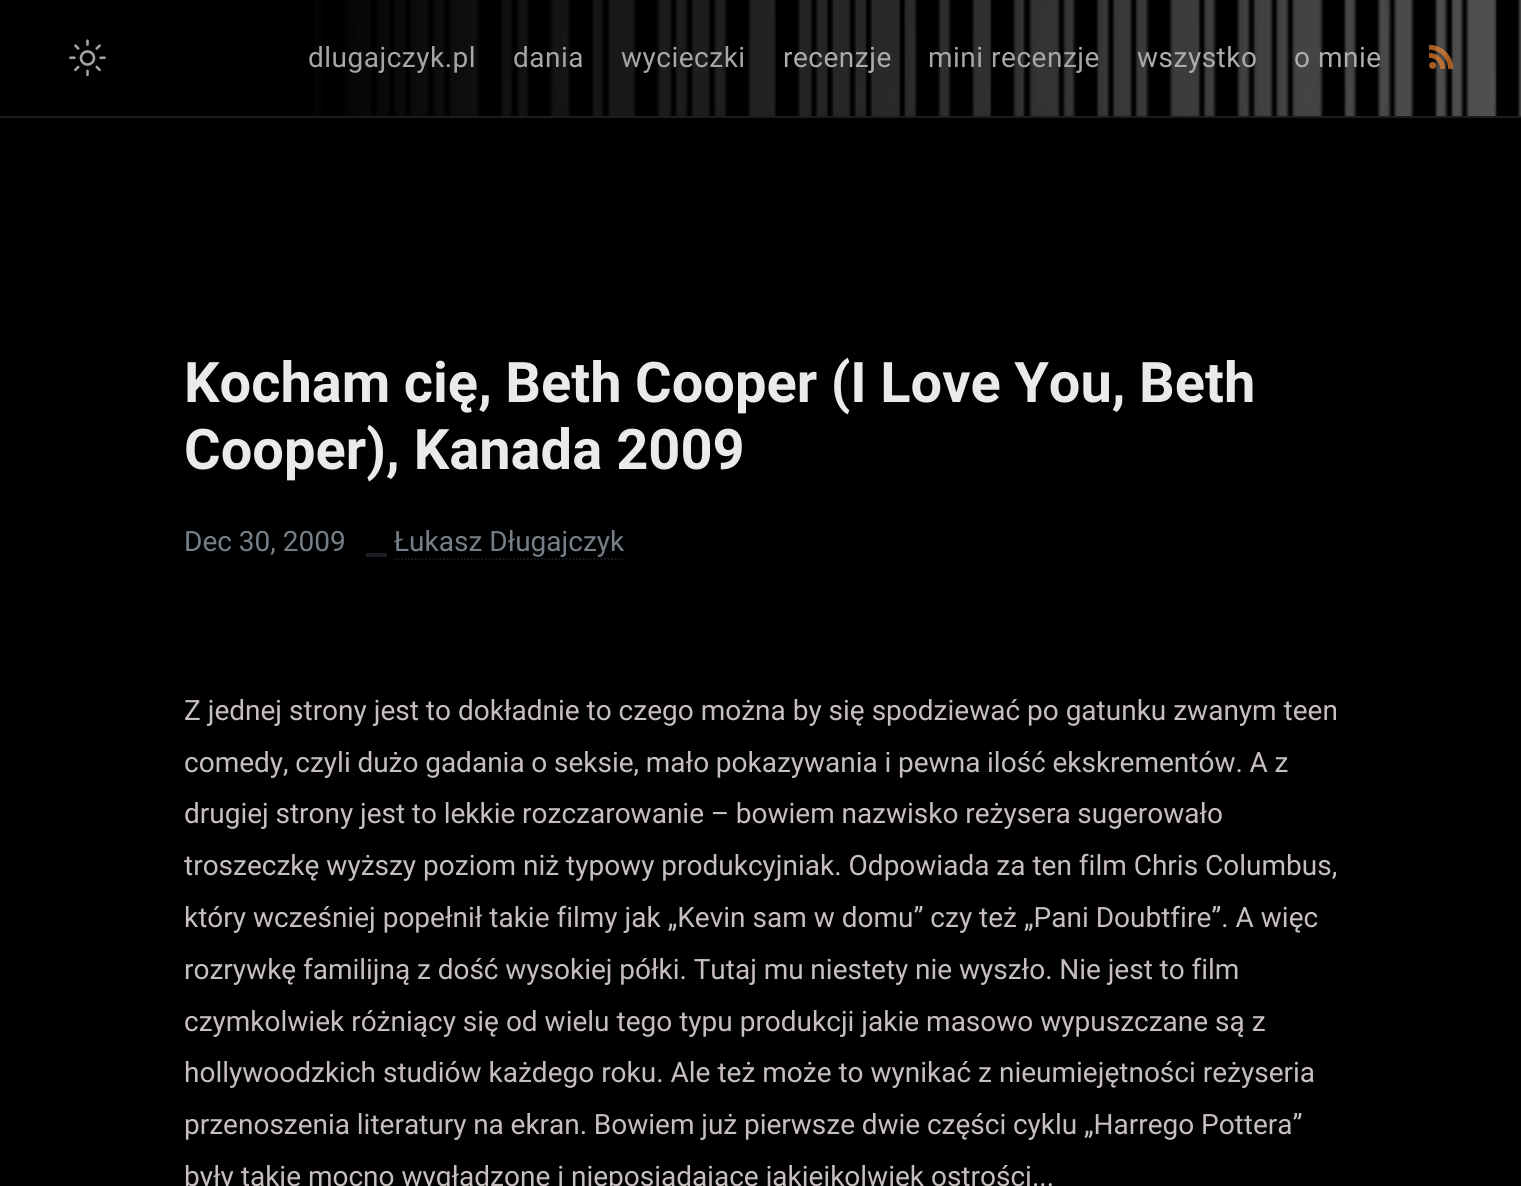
#include <cairo/cairo.h>
#include <math.h>
#include <stddef.h>


static void draw_spaced(cairo_t *cr, double x, double y, const char *s, double letter, double word) {
  cairo_move_to(cr, x, y);
  while (*s) {
    char ch[5] = {0};
    int n = 0;
    do ch[n++] = *s++; while ((*s & 0xC0) == 0x80);
    cairo_show_text(cr, ch);
    cairo_rel_move_to(cr, letter + word * (*ch == ' '), 0);
  }
}

static void draw_image(cairo_t *cr, const char *path, double x, double y, double w, double h) {
  cairo_surface_t *image = cairo_image_surface_create_from_png(path);
  cairo_save(cr);
  cairo_set_source_surface(cr, image, x, y);
  cairo_rectangle(cr, x, y, w, h);
  cairo_fill(cr);
  cairo_restore(cr);
  cairo_surface_destroy(image);
}

static void draw(cairo_t *cr) {
  cairo_set_source_rgb(cr, 0, 0, 0);
  cairo_paint(cr);
  draw_image(cr, "images/1.png", 314, 0, 1207, 116);
  cairo_set_source_rgb(cr, 27 / 255.0, 29 / 255.0, 37 / 255.0);
  cairo_rectangle(cr, 0, 116, 1521, 2);
  cairo_fill(cr);
  draw_image(cr, "images/2.png", 69, 39, 37, 38);
  draw_image(cr, "images/3.png", 1429, 44, 25, 25);
  cairo_rectangle(cr, 366, 553, 21, 4);
  cairo_fill(cr);
  cairo_new_path(cr);
  cairo_move_to(cr, 394, 559);
  cairo_line_to(cr, 625, 559);
  cairo_set_line_width(cr, 1.8);
  cairo_set_dash(cr, (double[]){1.75, 1.75}, 2, 0);
  cairo_stroke(cr);
  cairo_select_font_face(cr, "Roboto", CAIRO_FONT_SLANT_NORMAL, CAIRO_FONT_WEIGHT_NORMAL);
  cairo_set_font_size(cr, 28);
  cairo_set_source_rgb(cr, 166 / 255.0, 166 / 255.0, 166 / 255.0);
  draw_spaced(cr, 308, 67, "dlugajczyk.pl", 0.5, 0);
  draw_spaced(cr, 513, 67, "dania", 0.5, 0);
  draw_spaced(cr, 621, 67, "wycieczki", 0.5, 0);
  cairo_set_source_rgb(cr, 172 / 255.0, 172 / 255.0, 172 / 255.0);
  draw_spaced(cr, 783, 67, "recenzje", 0.5, 0);
  cairo_set_source_rgb(cr, 166 / 255.0, 166 / 255.0, 166 / 255.0);
  draw_spaced(cr, 928, 67, "mini recenzje", 0.5, 0);
  cairo_set_source_rgb(cr, 172 / 255.0, 172 / 255.0, 172 / 255.0);
  draw_spaced(cr, 1137, 67, "wszystko", 0.5, 0);
  draw_spaced(cr, 1294, 67, "o mnie", 0.5, 0);
  cairo_select_font_face(cr, "Roboto", CAIRO_FONT_SLANT_NORMAL, CAIRO_FONT_WEIGHT_BOLD);
  cairo_set_font_size(cr, 56);
  cairo_set_source_rgb(cr, 234 / 255.0, 234 / 255.0, 234 / 255.0);
  draw_spaced(cr, 184, 402, "Kocham cię, Beth Cooper (I Love You, Beth", 0, -0.5);
  cairo_move_to(cr, 184, 469);
  cairo_show_text(cr, "Cooper), Kanada 2009");
  cairo_select_font_face(cr, "Roboto", CAIRO_FONT_SLANT_NORMAL, CAIRO_FONT_WEIGHT_NORMAL);
  cairo_set_font_size(cr, 28);
  cairo_set_source_rgb(cr, 118 / 255.0, 127 / 255.0, 135 / 255.0);
  cairo_move_to(cr, 184, 551);
  cairo_show_text(cr, "Dec 30, 2009");
  cairo_move_to(cr, 394, 551);
  cairo_show_text(cr, "Łukasz Długajczyk");
  cairo_set_source_rgb(cr, 199 / 255.0, 190 / 255.0, 190 / 255.0);
  cairo_move_to(cr, 184, 720);
  cairo_show_text(cr, "Z jednej strony jest to dokładnie to czego można by się spodziewać po gatunku zwanym teen");
  draw_spaced(cr, 184, 772, "comedy, czyli dużo gadania o seksie, mało pokazywania i pewna ilość ekskrementów. A z", 0, -0.25);
  draw_spaced(cr, 184, 823, "drugiej strony jest to lekkie rozczarowanie – bowiem nazwisko reżysera sugerowało", 0, -0.25);
  cairo_move_to(cr, 184, 875);
  cairo_show_text(cr, "troszeczkę wyższy poziom niż typowy produkcyjniak. Odpowiada za ten film Chris Columbus,");
  cairo_move_to(cr, 184, 927);
  cairo_show_text(cr, "który wcześniej popełnił takie filmy jak „Kevin sam w domu” czy też „Pani Doubtfire”. A więc");
  draw_spaced(cr, 184, 979, "rozrywkę familijną z dość wysokiej półki. Tutaj mu niestety nie wyszło. Nie jest to film", 0, -0.2);
  cairo_move_to(cr, 184, 1031);
  cairo_show_text(cr, "czymkolwiek różniący się od wielu tego typu produkcji jakie masowo wypuszczane są z");
  cairo_move_to(cr, 184, 1082);
  cairo_show_text(cr, "hollywoodzkich studiów każdego roku. Ale też może to wynikać z nieumiejętności reżyseria");
  draw_spaced(cr, 184, 1134, "przenoszenia literatury na ekran. Bowiem już pierwsze dwie części cyklu „Harrego Pottera”", 0, -0.25);
  cairo_move_to(cr, 184, 1186);
  cairo_show_text(cr, "były takie mocno wygładzone i nieposiadające jakiejkolwiek ostrości...");
}

int main(void) {
  cairo_surface_t *surface = cairo_image_surface_create(CAIRO_FORMAT_RGB24, 1521, 1186);
  cairo_t *cr = cairo_create(surface);
  cairo_font_options_t *options = cairo_font_options_create();
  cairo_font_options_set_hint_metrics(options, CAIRO_HINT_METRICS_OFF);
  cairo_font_options_set_hint_style(options, CAIRO_HINT_STYLE_NONE);
  cairo_set_font_options(cr, options);
  cairo_set_miter_limit(cr, 4);
  draw(cr);
  cairo_surface_write_to_png(surface, "out.png");
  cairo_font_options_destroy(options);
  cairo_destroy(cr);
  cairo_surface_destroy(surface);
  return 0;
}
